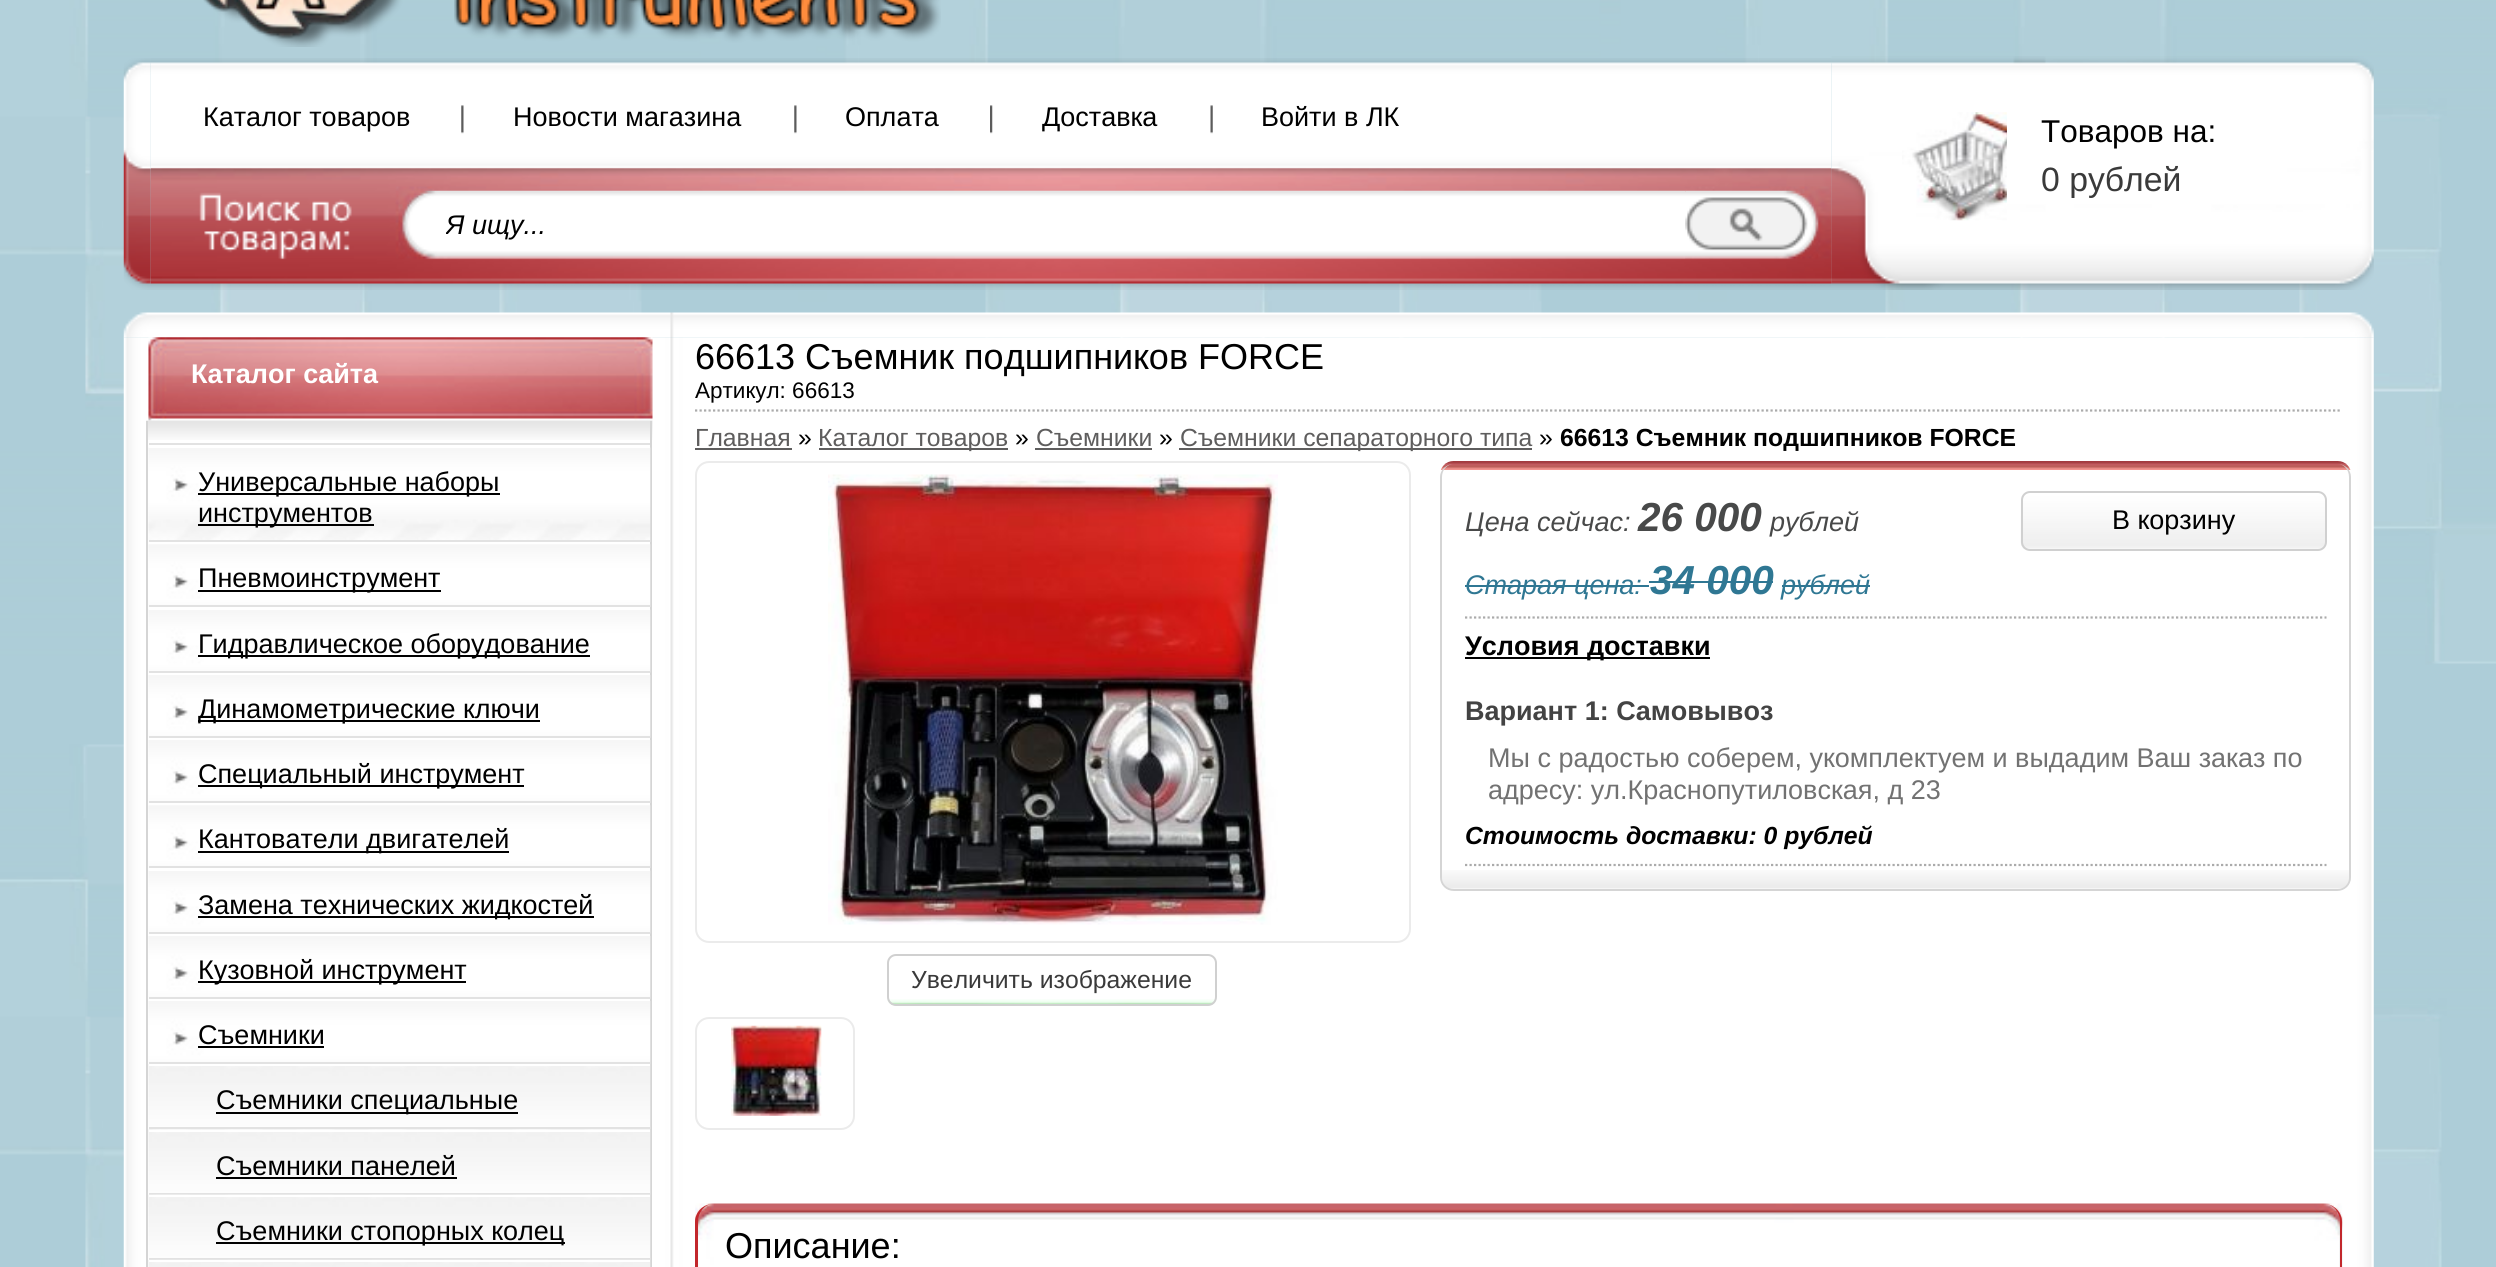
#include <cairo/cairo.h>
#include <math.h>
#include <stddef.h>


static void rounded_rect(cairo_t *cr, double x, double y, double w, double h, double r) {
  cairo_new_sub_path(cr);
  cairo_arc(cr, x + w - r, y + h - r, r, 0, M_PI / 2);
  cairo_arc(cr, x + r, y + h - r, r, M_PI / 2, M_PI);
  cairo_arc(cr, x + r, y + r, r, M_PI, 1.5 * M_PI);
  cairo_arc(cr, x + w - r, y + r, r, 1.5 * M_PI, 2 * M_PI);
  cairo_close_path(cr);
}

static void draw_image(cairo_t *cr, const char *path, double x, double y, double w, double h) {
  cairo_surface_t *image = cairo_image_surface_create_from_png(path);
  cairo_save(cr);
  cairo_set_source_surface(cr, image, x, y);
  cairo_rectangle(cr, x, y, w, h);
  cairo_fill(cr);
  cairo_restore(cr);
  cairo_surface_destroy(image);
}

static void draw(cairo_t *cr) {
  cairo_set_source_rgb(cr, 1, 1, 1);
  cairo_paint(cr);
  draw_image(cr, "images/1.png", 0, 0, 2496, 1267);
  draw_image(cr, "images/2.png", 203, 0, 738, 47);
  draw_image(cr, "images/3.png", 123, 58, 28, 232);
  draw_image(cr, "images/4.png", 150, 58, 1682, 232);
  draw_image(cr, "images/5.png", 461, 105, 3, 29);
  draw_image(cr, "images/5.png", 794, 105, 3, 29);
  draw_image(cr, "images/6.png", 990, 105, 3, 29);
  draw_image(cr, "images/7.png", 1210, 105, 3, 29);
  draw_image(cr, "images/8.png", 151, 168, 1681, 116);
  draw_image(cr, "images/9.png", 280, 191, 1406, 68);
  draw_image(cr, "images/10.png", 1685, 191, 133, 68);
  draw_image(cr, "images/11.png", 1831, 56, 543, 234);
  draw_image(cr, "images/12.png", 1902, 112, 105, 109);
  draw_image(cr, "images/13.png", 123, 312, 2251, 26);
  draw_image(cr, "images/14.png", 123, 337, 2251, 930);
  draw_image(cr, "images/15.png", 148, 337, 505, 84);
  draw_image(cr, "images/16.png", 146, 420, 507, 20);
  cairo_set_source_rgb(cr, 213 / 255.0, 213 / 255.0, 213 / 255.0);
  cairo_rectangle(cr, 650, 421, 2, 846);
  cairo_fill(cr);
  cairo_rectangle(cr, 146, 421, 2, 846);
  cairo_fill(cr);
  cairo_set_source_rgb(cr, 226 / 255.0, 226 / 255.0, 226 / 255.0);
  cairo_rectangle(cr, 149, 443, 501, 2);
  cairo_fill(cr);
  draw_image(cr, "images/17.png", 148, 447, 503, 95);
  cairo_set_source_rgb(cr, 1, 1, 1);
  cairo_rectangle(cr, 149, 447, 501, 1);
  cairo_fill(cr);
  cairo_set_source_rgb(cr, 226 / 255.0, 226 / 255.0, 226 / 255.0);
  cairo_rectangle(cr, 149, 540, 501, 2);
  cairo_fill(cr);
  cairo_set_source_rgb(cr, 0, 0, 0);
  cairo_rectangle(cr, 198, 493, 302, 2);
  cairo_fill(cr);
  cairo_rectangle(cr, 198, 524, 176, 2);
  cairo_fill(cr);
  draw_image(cr, "images/18.png", 148, 544, 503, 63);
  cairo_set_source_rgb(cr, 226 / 255.0, 226 / 255.0, 226 / 255.0);
  cairo_rectangle(cr, 149, 605, 501, 2);
  cairo_fill(cr);
  cairo_set_source_rgb(cr, 0, 0, 0);
  cairo_rectangle(cr, 198, 590, 243, 2);
  cairo_fill(cr);
  draw_image(cr, "images/19.png", 148, 609, 503, 64);
  cairo_set_source_rgb(cr, 1, 1, 1);
  cairo_rectangle(cr, 149, 609, 501, 1);
  cairo_fill(cr);
  cairo_set_source_rgb(cr, 226 / 255.0, 226 / 255.0, 226 / 255.0);
  cairo_rectangle(cr, 149, 671, 501, 2);
  cairo_fill(cr);
  cairo_set_source_rgb(cr, 0, 0, 0);
  cairo_rectangle(cr, 198, 655, 392, 2);
  cairo_fill(cr);
  draw_image(cr, "images/20.png", 148, 675, 503, 63);
  cairo_set_source_rgb(cr, 226 / 255.0, 226 / 255.0, 226 / 255.0);
  cairo_rectangle(cr, 149, 736, 501, 2);
  cairo_fill(cr);
  cairo_set_source_rgb(cr, 0, 0, 0);
  cairo_rectangle(cr, 198, 720, 342, 2);
  cairo_fill(cr);
  draw_image(cr, "images/21.png", 148, 740, 503, 63);
  cairo_set_source_rgb(cr, 226 / 255.0, 226 / 255.0, 226 / 255.0);
  cairo_rectangle(cr, 149, 801, 501, 2);
  cairo_fill(cr);
  cairo_set_source_rgb(cr, 0, 0, 0);
  cairo_rectangle(cr, 198, 785, 326, 2);
  cairo_fill(cr);
  draw_image(cr, "images/18.png", 148, 805, 503, 63);
  cairo_set_source_rgb(cr, 226 / 255.0, 226 / 255.0, 226 / 255.0);
  cairo_rectangle(cr, 149, 866, 501, 2);
  cairo_fill(cr);
  cairo_set_source_rgb(cr, 0, 0, 0);
  cairo_rectangle(cr, 198, 851, 311, 2);
  cairo_fill(cr);
  draw_image(cr, "images/22.png", 148, 870, 503, 64);
  cairo_set_source_rgb(cr, 1, 1, 1);
  cairo_rectangle(cr, 149, 870, 501, 1);
  cairo_fill(cr);
  cairo_set_source_rgb(cr, 226 / 255.0, 226 / 255.0, 226 / 255.0);
  cairo_rectangle(cr, 149, 932, 501, 2);
  cairo_fill(cr);
  cairo_set_source_rgb(cr, 0, 0, 0);
  cairo_rectangle(cr, 198, 916, 396, 2);
  cairo_fill(cr);
  draw_image(cr, "images/23.png", 148, 936, 503, 63);
  cairo_set_source_rgb(cr, 226 / 255.0, 226 / 255.0, 226 / 255.0);
  cairo_rectangle(cr, 149, 997, 501, 2);
  cairo_fill(cr);
  cairo_set_source_rgb(cr, 0, 0, 0);
  cairo_rectangle(cr, 198, 981, 268, 2);
  cairo_fill(cr);
  draw_image(cr, "images/21.png", 148, 1001, 503, 63);
  cairo_set_source_rgb(cr, 226 / 255.0, 226 / 255.0, 226 / 255.0);
  cairo_rectangle(cr, 149, 1062, 501, 2);
  cairo_fill(cr);
  cairo_set_source_rgb(cr, 0, 0, 0);
  cairo_rectangle(cr, 198, 1046, 126, 2);
  cairo_fill(cr);
  draw_image(cr, "images/24.png", 148, 1064, 503, 65);
  cairo_set_source_rgb(cr, 1, 1, 1);
  cairo_rectangle(cr, 149, 1064, 501, 2);
  cairo_fill(cr);
  cairo_set_source_rgb(cr, 226 / 255.0, 226 / 255.0, 226 / 255.0);
  cairo_rectangle(cr, 149, 1127, 501, 2);
  cairo_fill(cr);
  cairo_set_source_rgb(cr, 0, 0, 0);
  cairo_rectangle(cr, 216, 1112, 302, 2);
  cairo_fill(cr);
  draw_image(cr, "images/25.png", 148, 1129, 503, 66);
  cairo_set_source_rgb(cr, 1, 1, 1);
  cairo_rectangle(cr, 149, 1130, 501, 2);
  cairo_fill(cr);
  cairo_set_source_rgb(cr, 226 / 255.0, 226 / 255.0, 226 / 255.0);
  cairo_rectangle(cr, 149, 1193, 501, 2);
  cairo_fill(cr);
  cairo_set_source_rgb(cr, 0, 0, 0);
  cairo_rectangle(cr, 216, 1177, 241, 2);
  cairo_fill(cr);
  draw_image(cr, "images/26.png", 148, 1194, 503, 66);
  cairo_set_source_rgb(cr, 1, 1, 1);
  cairo_rectangle(cr, 149, 1195, 501, 2);
  cairo_fill(cr);
  cairo_set_source_rgb(cr, 226 / 255.0, 226 / 255.0, 226 / 255.0);
  cairo_rectangle(cr, 149, 1258, 501, 2);
  cairo_fill(cr);
  cairo_set_source_rgb(cr, 0, 0, 0);
  cairo_rectangle(cr, 216, 1242, 349, 2);
  cairo_fill(cr);
  draw_image(cr, "images/27.png", 148, 1259, 503, 8);
  cairo_set_source_rgb(cr, 1, 1, 1);
  cairo_rectangle(cr, 149, 1260, 501, 2);
  cairo_fill(cr);
  cairo_new_path(cr);
  cairo_move_to(cr, 695, 410.5);
  cairo_line_to(cr, 2342, 410.5);
  cairo_set_source_rgb(cr, 171 / 255.0, 171 / 255.0, 171 / 255.0);
  cairo_set_line_width(cr, 2.2);
  cairo_set_dash(cr, (double[]){2.25, 2.25}, 2, 0);
  cairo_stroke(cr);
  cairo_set_source_rgb(cr, 94 / 255.0, 93 / 255.0, 93 / 255.0);
  cairo_rectangle(cr, 695, 448, 97, 2);
  cairo_fill(cr);
  cairo_rectangle(cr, 819, 448, 189, 2);
  cairo_fill(cr);
  cairo_rectangle(cr, 1035, 448, 117, 2);
  cairo_fill(cr);
  cairo_rectangle(cr, 1179, 448, 353, 2);
  cairo_fill(cr);
  draw_image(cr, "images/28.png", 1441, 461, 910, 9);
  draw_image(cr, "images/29.png", 1440, 870, 911, 19);
  cairo_set_source_rgb(cr, 213 / 255.0, 213 / 255.0, 213 / 255.0);
  cairo_new_path(cr);
  cairo_move_to(cr, 1454, 464);
  cairo_curve_to(cr, 1446, 464, 1440, 470, 1440, 477);
  cairo_line_to(cr, 1440, 877);
  cairo_curve_to(cr, 1440, 885, 1446, 891, 1454, 891);
  cairo_line_to(cr, 2337, 891);
  cairo_curve_to(cr, 2345, 891, 2351, 885, 2351, 877);
  cairo_line_to(cr, 2351, 477);
  cairo_curve_to(cr, 2351, 470, 2345, 464, 2338, 464);
  cairo_curve_to(cr, 2344, 464, 2349, 470, 2349, 477);
  cairo_line_to(cr, 2349, 878);
  cairo_curve_to(cr, 2349, 884, 2344, 889, 2338, 889);
  cairo_line_to(cr, 1454, 889);
  cairo_curve_to(cr, 1447, 889, 1442, 884, 1442, 878);
  cairo_line_to(cr, 1442, 477);
  cairo_curve_to(cr, 1442, 470, 1447, 464, 1454, 464);
  cairo_close_path(cr);
  cairo_fill(cr);
  cairo_new_path(cr);
  cairo_move_to(cr, 1465, 617.5);
  cairo_line_to(cr, 2326.5, 617.5);
  cairo_set_source_rgb(cr, 171 / 255.0, 171 / 255.0, 171 / 255.0);
  cairo_stroke(cr);
  cairo_set_source_rgb(cr, 47 / 255.0, 119 / 255.0, 147 / 255.0);
  cairo_rectangle(cr, 1465, 585, 184, 2);
  cairo_fill(cr);
  cairo_rectangle(cr, 1649, 581, 124, 2);
  cairo_fill(cr);
  cairo_rectangle(cr, 1782, 585, 88, 2);
  cairo_fill(cr);
  draw_image(cr, "images/30.png", 2020, 492, 307, 57);
  rounded_rect(cr, 2022, 492, 304, 58, 8);
  cairo_set_source_rgb(cr, 208 / 255.0, 208 / 255.0, 208 / 255.0);
  cairo_set_line_width(cr, 2);
  cairo_set_dash(cr, NULL, 0, 0);
  cairo_stroke(cr);
  cairo_new_path(cr);
  cairo_move_to(cr, 1465, 865);
  cairo_line_to(cr, 2326.5, 865);
  cairo_set_source_rgb(cr, 171 / 255.0, 171 / 255.0, 171 / 255.0);
  cairo_set_line_width(cr, 2.2);
  cairo_set_dash(cr, (double[]){2.25, 2.25}, 2, 0);
  cairo_stroke(cr);
  cairo_set_source_rgb(cr, 0, 0, 0);
  cairo_rectangle(cr, 1465, 657, 245, 2);
  cairo_fill(cr);
  rounded_rect(cr, 696, 462, 714, 480, 13);
  cairo_set_source_rgb(cr, 235 / 255.0, 235 / 255.0, 235 / 255.0);
  cairo_set_line_width(cr, 2);
  cairo_set_dash(cr, NULL, 0, 0);
  cairo_stroke(cr);
  draw_image(cr, "images/31.png", 828, 474, 450, 451);
  draw_image(cr, "images/32.png", 887, 999, 329, 7);
  rounded_rect(cr, 888, 955, 328, 50, 8);
  cairo_set_source_rgb(cr, 208 / 255.0, 208 / 255.0, 208 / 255.0);
  cairo_stroke(cr);
  rounded_rect(cr, 696, 1018, 158, 111, 13);
  cairo_set_source_rgb(cr, 235 / 255.0, 235 / 255.0, 235 / 255.0);
  cairo_stroke(cr);
  draw_image(cr, "images/33.png", 731, 1025, 91, 91);
  draw_image(cr, "images/34.png", 695, 1203, 1648, 64);
  cairo_set_source_rgb(cr, 194 / 255.0, 39 / 255.0, 44 / 255.0);
  cairo_set_fill_rule(cr, CAIRO_FILL_RULE_EVEN_ODD);
  cairo_new_path(cr);
  cairo_move_to(cr, 713, 1204);
  cairo_line_to(cr, 2324, 1204);
  cairo_curve_to(cr, 2334, 1204, 2342, 1212, 2342, 1222);
  cairo_line_to(cr, 2342, 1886);
  cairo_curve_to(cr, 2342, 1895, 2334, 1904, 2324, 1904);
  cairo_line_to(cr, 713, 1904);
  cairo_curve_to(cr, 703, 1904, 695, 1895, 695, 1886);
  cairo_line_to(cr, 695, 1222);
  cairo_curve_to(cr, 695, 1212, 703, 1204, 713, 1204);
  cairo_close_path(cr);
  cairo_move_to(cr, 713, 1204);
  cairo_line_to(cr, 2324, 1204);
  cairo_curve_to(cr, 2333, 1204, 2340, 1212, 2340, 1222);
  cairo_line_to(cr, 2340, 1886);
  cairo_curve_to(cr, 2340, 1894, 2333, 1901, 2324, 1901);
  cairo_line_to(cr, 713, 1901);
  cairo_curve_to(cr, 705, 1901, 698, 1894, 698, 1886);
  cairo_line_to(cr, 698, 1222);
  cairo_curve_to(cr, 698, 1212, 705, 1204, 713, 1204);
  cairo_close_path(cr);
  cairo_fill(cr);
  cairo_select_font_face(cr, "Liberation Sans", CAIRO_FONT_SLANT_NORMAL, CAIRO_FONT_WEIGHT_NORMAL);
  cairo_set_font_size(cr, 27);
  cairo_set_source_rgb(cr, 0, 0, 0);
  cairo_move_to(cr, 203, 126);
  cairo_show_text(cr, "Каталог товаров");
  cairo_move_to(cr, 513, 126);
  cairo_show_text(cr, "Новости магазина");
  cairo_move_to(cr, 845, 126);
  cairo_show_text(cr, "Оплата");
  cairo_move_to(cr, 1042, 126);
  cairo_show_text(cr, "Доставка");
  cairo_move_to(cr, 1261, 126);
  cairo_show_text(cr, "Войти в ЛК");
  cairo_save(cr);
  cairo_set_fill_rule(cr, CAIRO_FILL_RULE_WINDING);
  cairo_rectangle(cr, 446, 191, 1228, 68);
  cairo_clip(cr);
  cairo_select_font_face(cr, "Liberation Sans", CAIRO_FONT_SLANT_ITALIC, CAIRO_FONT_WEIGHT_NORMAL);
  cairo_move_to(cr, 446, 234);
  cairo_show_text(cr, "Я ищу...");
  cairo_restore(cr);
  cairo_set_font_size(cr, 31.5);
  cairo_move_to(cr, 2041, 142);
  cairo_show_text(cr, "Товаров на:");
  cairo_set_font_size(cr, 33.75);
  cairo_set_source_rgb(cr, 58 / 255.0, 58 / 255.0, 58 / 255.0);
  cairo_move_to(cr, 2041, 191);
  cairo_show_text(cr, "0 рублей");
  cairo_select_font_face(cr, "Liberation Sans", CAIRO_FONT_SLANT_NORMAL, CAIRO_FONT_WEIGHT_BOLD);
  cairo_set_font_size(cr, 27);
  cairo_set_source_rgb(cr, 1, 1, 1);
  cairo_move_to(cr, 191, 383);
  cairo_show_text(cr, "Каталог сайта");
  cairo_select_font_face(cr, "Liberation Sans", CAIRO_FONT_SLANT_NORMAL, CAIRO_FONT_WEIGHT_NORMAL);
  cairo_set_source_rgb(cr, 0, 0, 0);
  cairo_move_to(cr, 198, 491);
  cairo_show_text(cr, "Универсальные наборы");
  cairo_move_to(cr, 198, 522);
  cairo_show_text(cr, "инструментов");
  cairo_move_to(cr, 198, 587);
  cairo_show_text(cr, "Пневмоинструмент");
  cairo_move_to(cr, 198, 653);
  cairo_show_text(cr, "Гидравлическое оборудование");
  cairo_move_to(cr, 198, 718);
  cairo_show_text(cr, "Динамометрические ключи");
  cairo_move_to(cr, 198, 783);
  cairo_show_text(cr, "Специальный инструмент");
  cairo_move_to(cr, 198, 848);
  cairo_show_text(cr, "Кантователи двигателей");
  cairo_move_to(cr, 198, 914);
  cairo_show_text(cr, "Замена технических жидкостей");
  cairo_move_to(cr, 198, 979);
  cairo_show_text(cr, "Кузовной инструмент");
  cairo_move_to(cr, 198, 1044);
  cairo_show_text(cr, "Съемники");
  cairo_move_to(cr, 216, 1109);
  cairo_show_text(cr, "Съемники специальные");
  cairo_move_to(cr, 216, 1175);
  cairo_show_text(cr, "Съемники панелей");
  cairo_move_to(cr, 216, 1240);
  cairo_show_text(cr, "Съемники стопорных колец");
  cairo_set_font_size(cr, 36);
  cairo_move_to(cr, 695, 369);
  cairo_show_text(cr, "66613 Съемник подшипников FORCE");
  cairo_set_font_size(cr, 22.5);
  cairo_move_to(cr, 695, 398);
  cairo_show_text(cr, "Артикул: 66613");
  cairo_set_font_size(cr, 24.75);
  cairo_set_source_rgb(cr, 94 / 255.0, 93 / 255.0, 93 / 255.0);
  cairo_move_to(cr, 695, 446);
  cairo_show_text(cr, "Главная");
  cairo_set_source_rgb(cr, 0, 0, 0);
  cairo_move_to(cr, 798, 446);
  cairo_show_text(cr, "»");
  cairo_set_source_rgb(cr, 94 / 255.0, 93 / 255.0, 93 / 255.0);
  cairo_move_to(cr, 818, 446);
  cairo_show_text(cr, "Каталог товаров");
  cairo_set_source_rgb(cr, 0, 0, 0);
  cairo_move_to(cr, 1015, 446);
  cairo_show_text(cr, "»");
  cairo_set_source_rgb(cr, 94 / 255.0, 93 / 255.0, 93 / 255.0);
  cairo_move_to(cr, 1036, 446);
  cairo_show_text(cr, "Съемники");
  cairo_set_source_rgb(cr, 0, 0, 0);
  cairo_move_to(cr, 1159, 446);
  cairo_show_text(cr, "»");
  cairo_set_source_rgb(cr, 94 / 255.0, 93 / 255.0, 93 / 255.0);
  cairo_move_to(cr, 1180, 446);
  cairo_show_text(cr, "Съемники сепараторного типа");
  cairo_set_source_rgb(cr, 0, 0, 0);
  cairo_move_to(cr, 1539, 446);
  cairo_show_text(cr, "»");
  cairo_select_font_face(cr, "Liberation Sans", CAIRO_FONT_SLANT_NORMAL, CAIRO_FONT_WEIGHT_BOLD);
  cairo_move_to(cr, 1560, 446);
  cairo_show_text(cr, "66613 Съемник подшипников FORCE");
  cairo_select_font_face(cr, "Liberation Sans", CAIRO_FONT_SLANT_ITALIC, CAIRO_FONT_WEIGHT_NORMAL);
  cairo_set_font_size(cr, 27);
  cairo_set_source_rgb(cr, 72 / 255.0, 73 / 255.0, 73 / 255.0);
  cairo_move_to(cr, 1465, 531);
  cairo_show_text(cr, "Цена сейчас:");
  cairo_select_font_face(cr, "Liberation Sans", CAIRO_FONT_SLANT_ITALIC, CAIRO_FONT_WEIGHT_BOLD);
  cairo_set_font_size(cr, 40.5);
  cairo_move_to(cr, 1638, 531);
  cairo_show_text(cr, "26 000");
  cairo_select_font_face(cr, "Liberation Sans", CAIRO_FONT_SLANT_ITALIC, CAIRO_FONT_WEIGHT_NORMAL);
  cairo_set_font_size(cr, 27);
  cairo_move_to(cr, 1770, 531);
  cairo_show_text(cr, "рублей");
  cairo_set_source_rgb(cr, 47 / 255.0, 119 / 255.0, 147 / 255.0);
  cairo_move_to(cr, 1465, 594);
  cairo_show_text(cr, "Старая цена:");
  cairo_select_font_face(cr, "Liberation Sans", CAIRO_FONT_SLANT_ITALIC, CAIRO_FONT_WEIGHT_BOLD);
  cairo_set_font_size(cr, 40.5);
  cairo_move_to(cr, 1650, 594);
  cairo_show_text(cr, "34 000");
  cairo_select_font_face(cr, "Liberation Sans", CAIRO_FONT_SLANT_ITALIC, CAIRO_FONT_WEIGHT_NORMAL);
  cairo_set_font_size(cr, 27);
  cairo_move_to(cr, 1781, 594);
  cairo_show_text(cr, "рублей");
  cairo_select_font_face(cr, "Liberation Sans", CAIRO_FONT_SLANT_NORMAL, CAIRO_FONT_WEIGHT_NORMAL);
  cairo_set_source_rgb(cr, 0, 0, 0);
  cairo_move_to(cr, 2112, 529);
  cairo_show_text(cr, "В корзину");
  cairo_select_font_face(cr, "Liberation Sans", CAIRO_FONT_SLANT_NORMAL, CAIRO_FONT_WEIGHT_BOLD);
  cairo_move_to(cr, 1465, 655);
  cairo_show_text(cr, "Условия доставки");
  cairo_set_source_rgb(cr, 67 / 255.0, 67 / 255.0, 67 / 255.0);
  cairo_move_to(cr, 1465, 720);
  cairo_show_text(cr, "Вариант 1: Самовывоз");
  cairo_select_font_face(cr, "Liberation Sans", CAIRO_FONT_SLANT_NORMAL, CAIRO_FONT_WEIGHT_NORMAL);
  cairo_set_source_rgb(cr, 114 / 255.0, 114 / 255.0, 114 / 255.0);
  cairo_move_to(cr, 1488, 767);
  cairo_show_text(cr, "Мы с радостью соберем, укомплектуем и выдадим Ваш заказ по");
  cairo_move_to(cr, 1488, 799);
  cairo_show_text(cr, "адресу: ул.Краснопутиловская, д 23");
  cairo_select_font_face(cr, "Liberation Sans", CAIRO_FONT_SLANT_ITALIC, CAIRO_FONT_WEIGHT_BOLD);
  cairo_set_font_size(cr, 24.75);
  cairo_set_source_rgb(cr, 0, 0, 0);
  cairo_move_to(cr, 1465, 844);
  cairo_show_text(cr, "Стоимость доставки: 0 рублей");
  cairo_select_font_face(cr, "Liberation Sans", CAIRO_FONT_SLANT_NORMAL, CAIRO_FONT_WEIGHT_NORMAL);
  cairo_set_source_rgb(cr, 58 / 255.0, 58 / 255.0, 58 / 255.0);
  cairo_move_to(cr, 911, 988);
  cairo_show_text(cr, "Увеличить изображение");
  cairo_set_font_size(cr, 36);
  cairo_set_source_rgb(cr, 0, 0, 0);
  cairo_move_to(cr, 725, 1258);
  cairo_show_text(cr, "Описание:");
}

int main(void) {
  cairo_surface_t *surface = cairo_image_surface_create(CAIRO_FORMAT_RGB24, 2496, 1267);
  cairo_t *cr = cairo_create(surface);
  cairo_font_options_t *options = cairo_font_options_create();
  cairo_font_options_set_hint_metrics(options, CAIRO_HINT_METRICS_OFF);
  cairo_font_options_set_hint_style(options, CAIRO_HINT_STYLE_NONE);
  cairo_set_font_options(cr, options);
  cairo_set_miter_limit(cr, 4);
  draw(cr);
  cairo_surface_write_to_png(surface, "out.png");
  cairo_font_options_destroy(options);
  cairo_destroy(cr);
  cairo_surface_destroy(surface);
  return 0;
}
